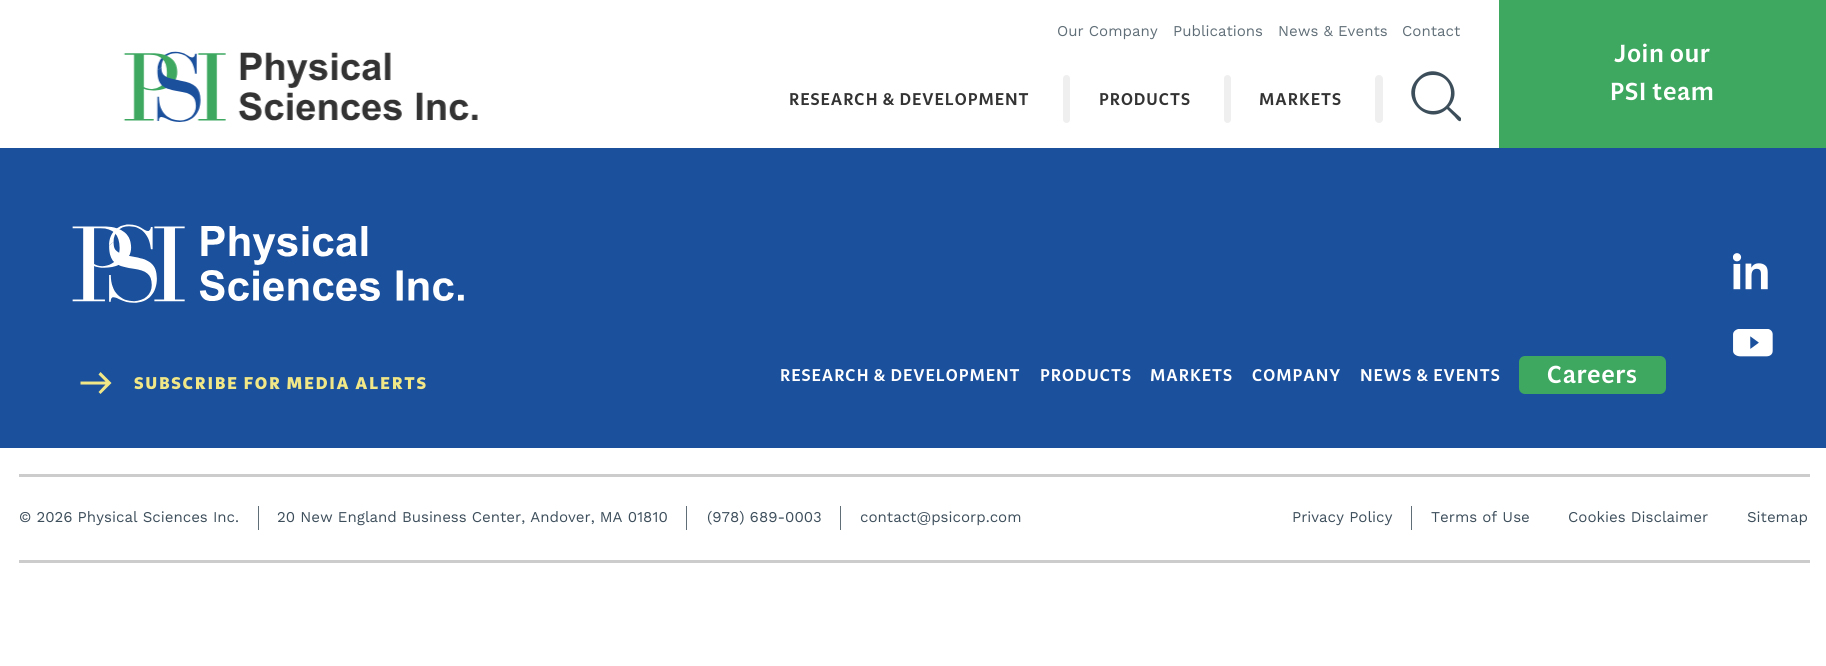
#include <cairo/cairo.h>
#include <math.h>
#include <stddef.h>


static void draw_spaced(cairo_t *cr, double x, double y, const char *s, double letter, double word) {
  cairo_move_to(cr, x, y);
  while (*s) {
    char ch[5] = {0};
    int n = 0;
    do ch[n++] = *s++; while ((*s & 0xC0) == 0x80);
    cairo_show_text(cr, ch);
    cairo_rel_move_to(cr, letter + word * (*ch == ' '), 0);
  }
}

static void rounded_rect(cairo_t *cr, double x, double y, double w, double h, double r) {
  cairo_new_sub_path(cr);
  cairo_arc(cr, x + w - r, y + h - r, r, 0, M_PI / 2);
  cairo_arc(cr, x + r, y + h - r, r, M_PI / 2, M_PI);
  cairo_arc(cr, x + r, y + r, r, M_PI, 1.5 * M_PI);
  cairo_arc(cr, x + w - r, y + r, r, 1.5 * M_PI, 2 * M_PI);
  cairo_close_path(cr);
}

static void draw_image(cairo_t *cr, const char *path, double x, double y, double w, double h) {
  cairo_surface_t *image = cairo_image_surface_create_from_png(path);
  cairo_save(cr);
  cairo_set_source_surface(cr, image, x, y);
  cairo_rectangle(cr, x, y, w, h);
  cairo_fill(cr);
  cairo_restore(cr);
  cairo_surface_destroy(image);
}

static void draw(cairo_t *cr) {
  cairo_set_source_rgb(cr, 1, 1, 1);
  cairo_paint(cr);
  draw_image(cr, "images/1.png", 123, 51, 355, 71);
  cairo_set_source_rgb(cr, 239 / 255.0, 239 / 255.0, 239 / 255.0);
  rounded_rect(cr, 1063, 75, 7, 48, 3.5);
  cairo_fill(cr);
  rounded_rect(cr, 1224, 75, 7, 48, 3.5);
  cairo_fill(cr);
  rounded_rect(cr, 1375, 75, 8, 48, 4);
  cairo_fill(cr);
  cairo_set_source_rgb(cr, 61 / 255.0, 78 / 255.0, 91 / 255.0);
  cairo_set_fill_rule(cr, CAIRO_FILL_RULE_EVEN_ODD);
  cairo_new_path(cr);
  cairo_move_to(cr, 1461, 118);
  cairo_line_to(cr, 1449, 107);
  cairo_curve_to(cr, 1467, 87, 1437, 58, 1418, 78);
  cairo_curve_to(cr, 1398, 97, 1427, 127, 1447, 109);
  cairo_line_to(cr, 1455, 117);
  cairo_curve_to(cr, 1455, 117, 1460, 124, 1461, 120);
  cairo_close_path(cr);
  cairo_move_to(cr, 1433, 111);
  cairo_curve_to(cr, 1409, 111, 1409, 75, 1433, 75);
  cairo_curve_to(cr, 1457, 75, 1457, 111, 1433, 111);
  cairo_close_path(cr);
  cairo_fill(cr);
  cairo_set_source_rgb(cr, 62 / 255.0, 168 / 255.0, 97 / 255.0);
  cairo_rectangle(cr, 1499, 0, 327, 148);
  cairo_fill(cr);
  cairo_set_source_rgb(cr, 27 / 255.0, 80 / 255.0, 157 / 255.0);
  cairo_rectangle(cr, 0, 148, 1826, 300);
  cairo_fill(cr);
  draw_image(cr, "images/2.png", 1733, 253, 35, 37);
  draw_image(cr, "images/3.png", 1733, 329, 40, 28);
  draw_image(cr, "images/4.png", 72, 224, 392, 79);
  cairo_set_source_rgb(cr, 242 / 255.0, 231 / 255.0, 135 / 255.0);
  cairo_set_fill_rule(cr, CAIRO_FILL_RULE_WINDING);
  cairo_new_path(cr);
  cairo_move_to(cr, 80.5, 381.5);
  cairo_line_to(cr, 105.5, 381.5);
  cairo_line_to(cr, 98.5, 374.5);
  cairo_line_to(cr, 100.5, 372);
  cairo_line_to(cr, 111.5, 383);
  cairo_line_to(cr, 100.5, 394);
  cairo_line_to(cr, 98.5, 392);
  cairo_line_to(cr, 105.5, 384.5);
  cairo_line_to(cr, 80.5, 384.5);
  cairo_close_path(cr);
  cairo_fill(cr);
  cairo_set_source_rgb(cr, 62 / 255.0, 168 / 255.0, 97 / 255.0);
  rounded_rect(cr, 1519, 356, 147, 38, 6);
  cairo_fill(cr);
  cairo_set_source_rgb(cr, 204 / 255.0, 204 / 255.0, 204 / 255.0);
  cairo_rectangle(cr, 19, 474, 1791, 3);
  cairo_fill(cr);
  cairo_set_source_rgb(cr, 96 / 255.0, 110 / 255.0, 119 / 255.0);
  cairo_rectangle(cr, 258, 506, 1, 24);
  cairo_fill(cr);
  cairo_rectangle(cr, 686, 506, 1, 24);
  cairo_fill(cr);
  cairo_rectangle(cr, 840, 506, 1, 24);
  cairo_fill(cr);
  cairo_rectangle(cr, 1411, 506, 1, 24);
  cairo_fill(cr);
  cairo_set_source_rgb(cr, 204 / 255.0, 204 / 255.0, 204 / 255.0);
  cairo_rectangle(cr, 19, 560, 1791, 3);
  cairo_fill(cr);
  cairo_select_font_face(cr, "Work Sans", CAIRO_FONT_SLANT_NORMAL, CAIRO_FONT_WEIGHT_NORMAL);
  cairo_set_font_size(cr, 15);
  cairo_set_source_rgb(cr, 96 / 255.0, 110 / 255.0, 119 / 255.0);
  cairo_move_to(cr, 1057, 36);
  cairo_show_text(cr, "Our Company");
  cairo_move_to(cr, 1173, 36);
  cairo_show_text(cr, "Publications");
  cairo_move_to(cr, 1278, 36);
  cairo_show_text(cr, "News & Events");
  cairo_move_to(cr, 1402, 36);
  cairo_show_text(cr, "Contact");
  cairo_select_font_face(cr, "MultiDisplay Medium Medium", CAIRO_FONT_SLANT_NORMAL, CAIRO_FONT_WEIGHT_NORMAL);
  cairo_set_font_size(cr, 16.9);
  cairo_set_source_rgb(cr, 51 / 255.0, 51 / 255.0, 51 / 255.0);
  draw_spaced(cr, 789, 105, "RESEARCH & DEVELOPMENT", 1, 0);
  draw_spaced(cr, 1099, 105, "PRODUCTS", 1, 0);
  draw_spaced(cr, 1259, 105, "MARKETS", 1, 0);
  cairo_set_font_size(cr, 24.5);
  cairo_set_source_rgb(cr, 1, 1, 1);
  draw_spaced(cr, 1614, 62, "Join our", 1, 0);
  draw_spaced(cr, 1610, 100, "PSI team", 1, 0);
  cairo_select_font_face(cr, "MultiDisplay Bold", CAIRO_FONT_SLANT_NORMAL, CAIRO_FONT_WEIGHT_BOLD);
  cairo_set_font_size(cr, 16.9);
  cairo_set_source_rgb(cr, 242 / 255.0, 231 / 255.0, 135 / 255.0);
  draw_spaced(cr, 134, 389, "SUBSCRIBE FOR MEDIA ALERTS", 1.7, 0);
  cairo_select_font_face(cr, "MultiDisplay Medium Medium", CAIRO_FONT_SLANT_NORMAL, CAIRO_FONT_WEIGHT_NORMAL);
  cairo_set_source_rgb(cr, 1, 1, 1);
  draw_spaced(cr, 780, 381, "RESEARCH & DEVELOPMENT", 1, 0);
  draw_spaced(cr, 1040, 381, "PRODUCTS", 1, 0);
  draw_spaced(cr, 1150, 381, "MARKETS", 1, 0);
  draw_spaced(cr, 1252, 381, "COMPANY", 1, 0);
  draw_spaced(cr, 1360, 381, "NEWS & EVENTS", 1, 0);
  cairo_set_font_size(cr, 24.5);
  draw_spaced(cr, 1547, 383, "Careers", 1, 0);
  cairo_select_font_face(cr, "Work Sans", CAIRO_FONT_SLANT_NORMAL, CAIRO_FONT_WEIGHT_NORMAL);
  cairo_set_font_size(cr, 15);
  cairo_set_source_rgb(cr, 61 / 255.0, 78 / 255.0, 91 / 255.0);
  cairo_move_to(cr, 19, 522);
  cairo_show_text(cr, "© 2026 Physical Sciences Inc.");
  cairo_move_to(cr, 277, 522);
  cairo_show_text(cr, "20 New England Business Center, Andover, MA 01810");
  cairo_move_to(cr, 707, 522);
  cairo_show_text(cr, "(978) 689-0003");
  cairo_move_to(cr, 860, 522);
  cairo_show_text(cr, "contact@psicorp.com");
  cairo_move_to(cr, 1292, 522);
  cairo_show_text(cr, "Privacy Policy");
  cairo_move_to(cr, 1431, 522);
  cairo_show_text(cr, "Terms of Use");
  cairo_move_to(cr, 1568, 522);
  cairo_show_text(cr, "Cookies Disclaimer");
  cairo_move_to(cr, 1747, 522);
  cairo_show_text(cr, "Sitemap");
}

int main(void) {
  cairo_surface_t *surface = cairo_image_surface_create(CAIRO_FORMAT_RGB24, 1826, 666);
  cairo_t *cr = cairo_create(surface);
  cairo_font_options_t *options = cairo_font_options_create();
  cairo_font_options_set_hint_metrics(options, CAIRO_HINT_METRICS_OFF);
  cairo_font_options_set_hint_style(options, CAIRO_HINT_STYLE_NONE);
  cairo_set_font_options(cr, options);
  cairo_set_miter_limit(cr, 4);
  draw(cr);
  cairo_surface_write_to_png(surface, "out.png");
  cairo_font_options_destroy(options);
  cairo_destroy(cr);
  cairo_surface_destroy(surface);
  return 0;
}
